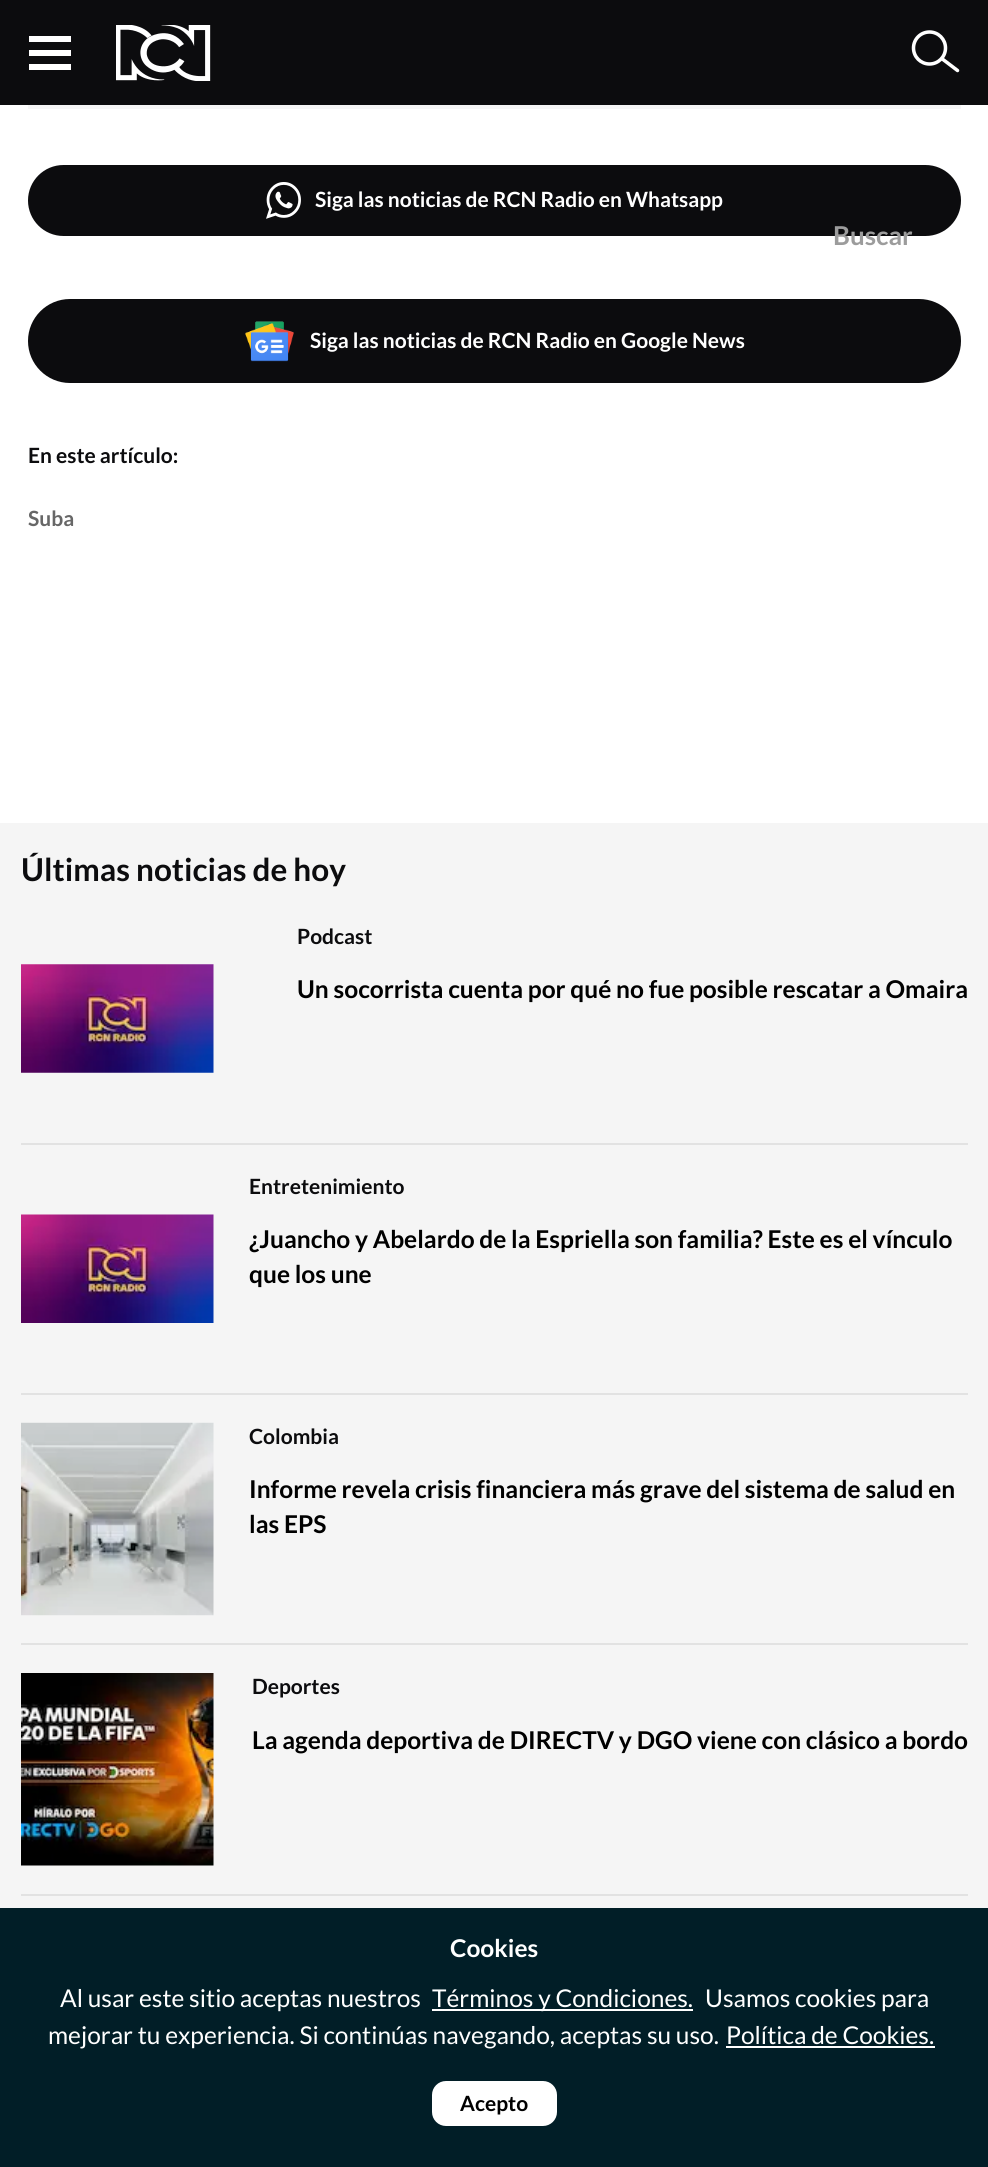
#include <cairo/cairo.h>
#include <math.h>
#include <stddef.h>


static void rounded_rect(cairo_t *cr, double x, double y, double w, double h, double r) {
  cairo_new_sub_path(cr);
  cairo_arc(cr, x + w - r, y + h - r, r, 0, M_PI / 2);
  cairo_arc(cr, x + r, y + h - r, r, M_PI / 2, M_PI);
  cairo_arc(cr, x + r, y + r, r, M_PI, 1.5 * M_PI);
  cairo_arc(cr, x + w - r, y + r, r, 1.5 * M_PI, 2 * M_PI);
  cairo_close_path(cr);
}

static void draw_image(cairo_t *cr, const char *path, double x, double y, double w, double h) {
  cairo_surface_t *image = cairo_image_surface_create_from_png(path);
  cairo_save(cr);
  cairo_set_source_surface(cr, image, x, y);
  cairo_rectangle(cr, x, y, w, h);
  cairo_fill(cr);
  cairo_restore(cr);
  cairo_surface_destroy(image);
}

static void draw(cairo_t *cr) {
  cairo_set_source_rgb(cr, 1, 1, 1);
  cairo_paint(cr);
  cairo_set_source_rgb(cr, 246 / 255.0, 246 / 255.0, 246 / 255.0);
  cairo_rectangle(cr, 28, 105, 933, 4);
  cairo_fill(cr);
  cairo_set_source_rgb(cr, 12 / 255.0, 12 / 255.0, 14 / 255.0);
  rounded_rect(cr, 29, 166, 931, 69, 34.5);
  cairo_fill_preserve(cr);
  cairo_stroke(cr);
  draw_image(cr, "images/1.png", 266, 182, 35, 37);
  rounded_rect(cr, 28, 299, 933, 84, 42);
  cairo_fill(cr);
  draw_image(cr, "images/2.png", 245, 321, 49, 41);
  cairo_set_source_rgb(cr, 245 / 255.0, 245 / 255.0, 245 / 255.0);
  cairo_rectangle(cr, 0, 823, 988, 1085);
  cairo_fill(cr);
  cairo_set_source_rgb(cr, 226 / 255.0, 226 / 255.0, 226 / 255.0);
  cairo_rectangle(cr, 21, 1143, 947, 2);
  cairo_fill(cr);
  draw_image(cr, "images/3.png", 21, 964, 193, 109);
  cairo_rectangle(cr, 21, 1393, 947, 2);
  cairo_fill(cr);
  draw_image(cr, "images/4.png", 21, 1214, 193, 109);
  cairo_rectangle(cr, 21, 1643, 947, 2);
  cairo_fill(cr);
  draw_image(cr, "images/5.png", 21, 1422, 193, 194);
  cairo_rectangle(cr, 21, 1894, 947, 2);
  cairo_fill(cr);
  draw_image(cr, "images/6.png", 21, 1673, 193, 193);
  cairo_set_source_rgb(cr, 12 / 255.0, 12 / 255.0, 14 / 255.0);
  cairo_rectangle(cr, 0, 0, 988, 105);
  cairo_fill(cr);
  cairo_set_source_rgb(cr, 1, 1, 1);
  cairo_new_path(cr);
  cairo_move_to(cr, 29, 36);
  cairo_line_to(cr, 71, 36);
  cairo_line_to(cr, 71, 42);
  cairo_line_to(cr, 29, 42);
  cairo_close_path(cr);
  cairo_move_to(cr, 29, 50);
  cairo_line_to(cr, 71, 50);
  cairo_line_to(cr, 71, 56);
  cairo_line_to(cr, 29, 56);
  cairo_close_path(cr);
  cairo_move_to(cr, 29, 64);
  cairo_line_to(cr, 71, 64);
  cairo_line_to(cr, 71, 70);
  cairo_line_to(cr, 29, 70);
  cairo_close_path(cr);
  cairo_fill(cr);
  draw_image(cr, "images/7.png", 116, 25, 95, 56);
  cairo_arc(cr, 929.5, 48, 16, 0, 2 * M_PI);
  cairo_set_line_width(cr, 3.5);
  cairo_stroke(cr);
  cairo_new_path(cr);
  cairo_move_to(cr, 943, 59.5);
  cairo_line_to(cr, 957.5, 70.5);
  cairo_set_line_cap(cr, CAIRO_LINE_CAP_ROUND);
  cairo_stroke(cr);
  cairo_set_source_rgb(cr, 1 / 255.0, 30 / 255.0, 39 / 255.0);
  cairo_rectangle(cr, 0, 1908, 988, 259);
  cairo_fill(cr);
  cairo_set_source_rgb(cr, 1, 1, 1);
  cairo_rectangle(cr, 432, 2009, 261, 2);
  cairo_fill(cr);
  cairo_rectangle(cr, 726, 2046, 209, 2);
  cairo_fill(cr);
  rounded_rect(cr, 432, 2081, 125, 45, 14);
  cairo_fill(cr);
  cairo_select_font_face(cr, "Lato", CAIRO_FONT_SLANT_NORMAL, CAIRO_FONT_WEIGHT_BOLD);
  cairo_set_font_size(cr, 21);
  cairo_move_to(cr, 315, 207);
  cairo_show_text(cr, "Siga las noticias de RCN Radio en Whatsapp");
  cairo_move_to(cr, 310, 348);
  cairo_show_text(cr, "Siga las noticias de RCN Radio en Google News");
  cairo_set_source_rgb(cr, 12 / 255.0, 12 / 255.0, 14 / 255.0);
  cairo_move_to(cr, 28, 463);
  cairo_show_text(cr, "En este artículo:");
  cairo_set_source_rgb(cr, 103 / 255.0, 103 / 255.0, 103 / 255.0);
  cairo_move_to(cr, 28, 526);
  cairo_show_text(cr, "Suba");
  cairo_set_font_size(cr, 31.5);
  cairo_set_source_rgb(cr, 12 / 255.0, 12 / 255.0, 14 / 255.0);
  cairo_move_to(cr, 21, 881);
  cairo_show_text(cr, "Últimas noticias de hoy");
  cairo_set_font_size(cr, 21);
  cairo_move_to(cr, 297, 944);
  cairo_show_text(cr, "Podcast");
  cairo_set_font_size(cr, 24.5);
  cairo_set_source_rgb(cr, 0, 0, 0);
  cairo_move_to(cr, 297, 998);
  cairo_show_text(cr, "Un socorrista cuenta por qué no fue posible rescatar a Omaira");
  cairo_set_font_size(cr, 21);
  cairo_set_source_rgb(cr, 12 / 255.0, 12 / 255.0, 14 / 255.0);
  cairo_move_to(cr, 249, 1194);
  cairo_show_text(cr, "Entretenimiento");
  cairo_set_font_size(cr, 24.5);
  cairo_set_source_rgb(cr, 0, 0, 0);
  cairo_move_to(cr, 249, 1248);
  cairo_show_text(cr, "¿Juancho y Abelardo de la Espriella son familia? Este es el vínculo");
  cairo_move_to(cr, 249, 1283);
  cairo_show_text(cr, "que los une");
  cairo_set_font_size(cr, 21);
  cairo_set_source_rgb(cr, 12 / 255.0, 12 / 255.0, 14 / 255.0);
  cairo_move_to(cr, 249, 1444);
  cairo_show_text(cr, "Colombia");
  cairo_set_font_size(cr, 24.5);
  cairo_set_source_rgb(cr, 0, 0, 0);
  cairo_move_to(cr, 249, 1498);
  cairo_show_text(cr, "Informe revela crisis financiera más grave del sistema de salud en");
  cairo_move_to(cr, 249, 1533);
  cairo_show_text(cr, "las EPS");
  cairo_set_font_size(cr, 21);
  cairo_set_source_rgb(cr, 12 / 255.0, 12 / 255.0, 14 / 255.0);
  cairo_move_to(cr, 252, 1694);
  cairo_show_text(cr, "Deportes");
  cairo_set_font_size(cr, 24.5);
  cairo_set_source_rgb(cr, 0, 0, 0);
  cairo_move_to(cr, 252, 1749);
  cairo_show_text(cr, "La agenda deportiva de DIRECTV y DGO viene con clásico a bordo");
  cairo_set_font_size(cr, 26);
  cairo_set_source_rgb(cr, 156 / 255.0, 156 / 255.0, 156 / 255.0);
  cairo_move_to(cr, 833, 245);
  cairo_show_text(cr, "Buscar");
  cairo_set_font_size(cr, 24.5);
  cairo_set_source_rgb(cr, 1, 1, 1);
  cairo_move_to(cr, 450, 1957);
  cairo_show_text(cr, "Cookies");
  cairo_select_font_face(cr, "Lato", CAIRO_FONT_SLANT_NORMAL, CAIRO_FONT_WEIGHT_NORMAL);
  cairo_move_to(cr, 60, 2007);
  cairo_show_text(cr, "Al usar este sitio aceptas nuestros");
  cairo_move_to(cr, 432, 2007);
  cairo_show_text(cr, "Términos y Condiciones.");
  cairo_move_to(cr, 705, 2007);
  cairo_show_text(cr, "Usamos cookies para");
  cairo_move_to(cr, 48, 2044);
  cairo_show_text(cr, "mejorar tu experiencia. Si continúas navegando, aceptas su uso.");
  cairo_move_to(cr, 726, 2044);
  cairo_show_text(cr, "Política de Cookies.");
  cairo_select_font_face(cr, "Lato", CAIRO_FONT_SLANT_NORMAL, CAIRO_FONT_WEIGHT_BOLD);
  cairo_set_font_size(cr, 21);
  cairo_set_source_rgb(cr, 0, 0, 0);
  cairo_move_to(cr, 460, 2111);
  cairo_show_text(cr, "Acepto");
}

int main(void) {
  cairo_surface_t *surface = cairo_image_surface_create(CAIRO_FORMAT_RGB24, 988, 2167);
  cairo_t *cr = cairo_create(surface);
  cairo_font_options_t *options = cairo_font_options_create();
  cairo_font_options_set_hint_metrics(options, CAIRO_HINT_METRICS_OFF);
  cairo_font_options_set_hint_style(options, CAIRO_HINT_STYLE_NONE);
  cairo_set_font_options(cr, options);
  cairo_set_miter_limit(cr, 4);
  draw(cr);
  cairo_surface_write_to_png(surface, "out.png");
  cairo_font_options_destroy(options);
  cairo_destroy(cr);
  cairo_surface_destroy(surface);
  return 0;
}
